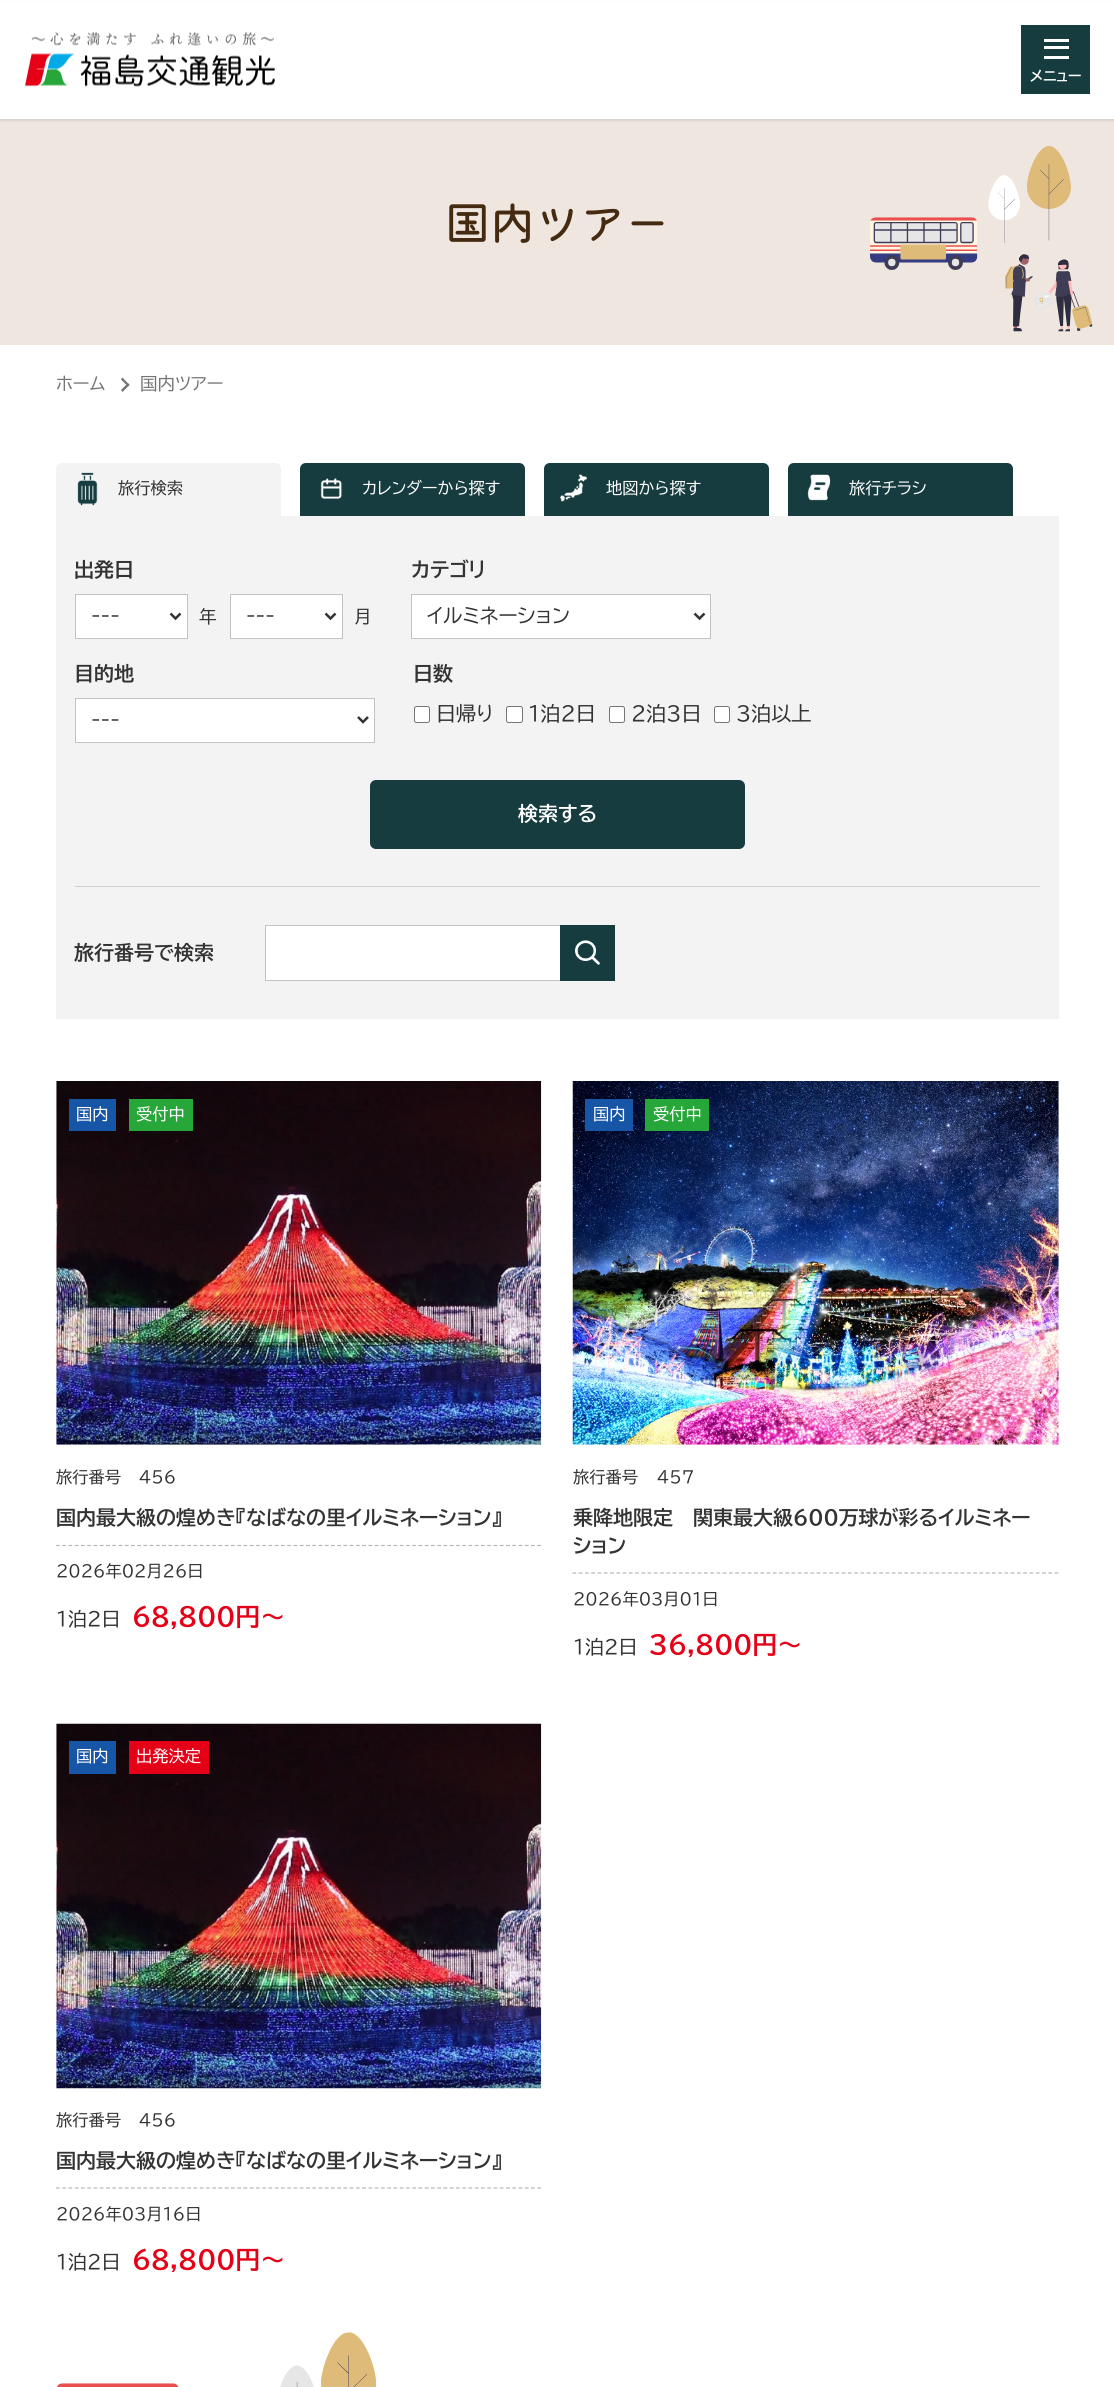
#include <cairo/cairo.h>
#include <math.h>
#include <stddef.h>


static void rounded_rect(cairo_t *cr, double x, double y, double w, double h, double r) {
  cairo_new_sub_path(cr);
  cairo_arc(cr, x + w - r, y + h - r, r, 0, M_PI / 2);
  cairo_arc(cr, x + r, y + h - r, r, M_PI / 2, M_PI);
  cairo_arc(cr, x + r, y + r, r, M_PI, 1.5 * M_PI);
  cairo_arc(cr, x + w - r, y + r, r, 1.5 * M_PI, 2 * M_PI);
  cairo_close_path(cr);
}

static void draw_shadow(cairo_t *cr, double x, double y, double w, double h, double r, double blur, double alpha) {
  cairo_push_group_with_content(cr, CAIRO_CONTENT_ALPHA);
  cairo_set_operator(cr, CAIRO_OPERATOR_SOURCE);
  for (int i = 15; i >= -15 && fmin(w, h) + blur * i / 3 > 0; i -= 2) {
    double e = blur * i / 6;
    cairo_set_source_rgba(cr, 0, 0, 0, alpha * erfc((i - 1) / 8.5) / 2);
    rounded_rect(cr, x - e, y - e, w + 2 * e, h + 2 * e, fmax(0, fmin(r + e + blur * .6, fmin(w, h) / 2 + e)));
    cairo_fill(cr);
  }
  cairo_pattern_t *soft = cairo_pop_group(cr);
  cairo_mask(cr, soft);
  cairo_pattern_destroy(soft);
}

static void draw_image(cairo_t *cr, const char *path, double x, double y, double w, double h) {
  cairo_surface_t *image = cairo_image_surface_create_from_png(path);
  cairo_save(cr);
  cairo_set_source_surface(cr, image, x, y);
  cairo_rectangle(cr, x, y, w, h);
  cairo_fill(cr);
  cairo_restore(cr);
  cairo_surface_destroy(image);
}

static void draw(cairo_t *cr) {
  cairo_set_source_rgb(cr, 1, 1, 1);
  cairo_paint(cr);
  cairo_set_source_rgb(cr, 239 / 255.0, 230 / 255.0, 223 / 255.0);
  cairo_rectangle(cr, 0, 119, 1114, 226);
  cairo_fill(cr);
  cairo_set_source_rgb(cr, 0, 0, 0);
  draw_shadow(cr, 0, 3, 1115, 118, 0, 1, 0.1);
  cairo_set_source_rgb(cr, 1, 1, 1);
  cairo_rectangle(cr, 0, 2, 1114, 117);
  cairo_fill(cr);
  draw_image(cr, "images/1.png", 25, 32, 250, 55);
  cairo_set_source_rgb(cr, 22 / 255.0, 60 / 255.0, 63 / 255.0);
  cairo_rectangle(cr, 1021, 25, 69, 69);
  cairo_fill(cr);
  cairo_set_source_rgb(cr, 1, 1, 1);
  cairo_rectangle(cr, 1044, 39, 25, 3);
  cairo_fill(cr);
  cairo_rectangle(cr, 1044, 46, 25, 3);
  cairo_fill(cr);
  cairo_rectangle(cr, 1044, 56, 25, 3);
  cairo_fill(cr);
  draw_image(cr, "images/2.png", 870, 146, 223, 186);
  cairo_set_source_rgb(cr, 116 / 255.0, 116 / 255.0, 116 / 255.0);
  cairo_new_path(cr);
  cairo_move_to(cr, 122.5, 377.5);
  cairo_line_to(cr, 129.5, 385);
  cairo_line_to(cr, 128, 386.5);
  cairo_line_to(cr, 121, 379.5);
  cairo_close_path(cr);
  cairo_fill(cr);
  cairo_new_path(cr);
  cairo_move_to(cr, 128, 383);
  cairo_line_to(cr, 129.5, 385);
  cairo_line_to(cr, 122.5, 392);
  cairo_line_to(cr, 121, 390);
  cairo_close_path(cr);
  cairo_fill(cr);
  cairo_set_source_rgb(cr, 243 / 255.0, 243 / 255.0, 243 / 255.0);
  cairo_new_path(cr);
  cairo_move_to(cr, 62, 463);
  cairo_line_to(cr, 275, 463);
  cairo_curve_to(cr, 278.5, 463, 281, 465.5, 281, 469);
  cairo_line_to(cr, 281, 516);
  cairo_line_to(cr, 56, 516);
  cairo_line_to(cr, 56, 469);
  cairo_curve_to(cr, 56, 465.5, 58.5, 463, 62, 463);
  cairo_close_path(cr);
  cairo_fill(cr);
  draw_image(cr, "images/3.png", 77, 472, 21, 34);
  cairo_set_source_rgb(cr, 22 / 255.0, 60 / 255.0, 63 / 255.0);
  cairo_new_path(cr);
  cairo_move_to(cr, 306, 463);
  cairo_line_to(cr, 519, 463);
  cairo_curve_to(cr, 522.5, 463, 525, 465.5, 525, 469);
  cairo_line_to(cr, 525, 516);
  cairo_line_to(cr, 300, 516);
  cairo_line_to(cr, 300, 469);
  cairo_curve_to(cr, 300, 465.5, 302.5, 463, 306, 463);
  cairo_close_path(cr);
  cairo_fill(cr);
  draw_image(cr, "images/4.png", 320, 478, 22, 21);
  cairo_new_path(cr);
  cairo_move_to(cr, 550, 463);
  cairo_line_to(cr, 763, 463);
  cairo_curve_to(cr, 766.5, 463, 769, 465.5, 769, 469);
  cairo_line_to(cr, 769, 516);
  cairo_line_to(cr, 544, 516);
  cairo_line_to(cr, 544, 469);
  cairo_curve_to(cr, 544, 465.5, 546.5, 463, 550, 463);
  cairo_close_path(cr);
  cairo_fill(cr);
  draw_image(cr, "images/5.png", 560, 474, 27, 28);
  cairo_new_path(cr);
  cairo_move_to(cr, 794, 463);
  cairo_line_to(cr, 1007, 463);
  cairo_curve_to(cr, 1010.5, 463, 1013, 465.5, 1013, 469);
  cairo_line_to(cr, 1013, 516);
  cairo_line_to(cr, 788, 516);
  cairo_line_to(cr, 788, 469);
  cairo_curve_to(cr, 788, 465.5, 790.5, 463, 794, 463);
  cairo_close_path(cr);
  cairo_fill(cr);
  draw_image(cr, "images/6.png", 807, 474, 24, 27);
  cairo_set_source_rgb(cr, 243 / 255.0, 243 / 255.0, 243 / 255.0);
  cairo_rectangle(cr, 56, 516, 1003, 503);
  cairo_fill(cr);
  cairo_set_source_rgb(cr, 1, 1, 1);
  cairo_rectangle(cr, 75.5, 594.5, 112, 44);
  cairo_fill_preserve(cr);
  cairo_set_source_rgb(cr, 195 / 255.0, 195 / 255.0, 195 / 255.0);
  cairo_set_line_width(cr, 1);
  cairo_stroke(cr);
  cairo_new_path(cr);
  cairo_move_to(cr, 170.5, 613.5);
  cairo_line_to(cr, 175.5, 618.5);
  cairo_line_to(cr, 180.5, 613.5);
  cairo_set_source_rgb(cr, 51 / 255.0, 51 / 255.0, 51 / 255.0);
  cairo_set_line_width(cr, 2.5);
  cairo_stroke(cr);
  cairo_set_source_rgb(cr, 1, 1, 1);
  cairo_rectangle(cr, 230.5, 594.5, 112, 44);
  cairo_fill_preserve(cr);
  cairo_set_source_rgb(cr, 195 / 255.0, 195 / 255.0, 195 / 255.0);
  cairo_set_line_width(cr, 1);
  cairo_stroke(cr);
  cairo_new_path(cr);
  cairo_move_to(cr, 325.5, 613.5);
  cairo_line_to(cr, 330.5, 618.5);
  cairo_line_to(cr, 335.5, 613.5);
  cairo_set_source_rgb(cr, 51 / 255.0, 51 / 255.0, 51 / 255.0);
  cairo_set_line_width(cr, 2.5);
  cairo_stroke(cr);
  cairo_set_source_rgb(cr, 1, 1, 1);
  cairo_rectangle(cr, 411.5, 594.5, 299, 44);
  cairo_fill_preserve(cr);
  cairo_set_source_rgb(cr, 195 / 255.0, 195 / 255.0, 195 / 255.0);
  cairo_set_line_width(cr, 1);
  cairo_stroke(cr);
  cairo_new_path(cr);
  cairo_move_to(cr, 694.5, 613.5);
  cairo_line_to(cr, 699.5, 618.5);
  cairo_line_to(cr, 704.5, 613.5);
  cairo_set_source_rgb(cr, 51 / 255.0, 51 / 255.0, 51 / 255.0);
  cairo_set_line_width(cr, 2.5);
  cairo_stroke(cr);
  cairo_set_source_rgb(cr, 1, 1, 1);
  cairo_rectangle(cr, 75.5, 698.5, 299, 44);
  cairo_fill_preserve(cr);
  cairo_set_source_rgb(cr, 195 / 255.0, 195 / 255.0, 195 / 255.0);
  cairo_set_line_width(cr, 1);
  cairo_stroke(cr);
  cairo_new_path(cr);
  cairo_move_to(cr, 358, 717);
  cairo_line_to(cr, 363, 722);
  cairo_line_to(cr, 368, 717);
  cairo_set_source_rgb(cr, 51 / 255.0, 51 / 255.0, 51 / 255.0);
  cairo_set_line_width(cr, 2.5);
  cairo_stroke(cr);
  cairo_set_source_rgb(cr, 1, 1, 1);
  rounded_rect(cr, 414.5, 706.5, 15, 16, 2);
  cairo_fill_preserve(cr);
  cairo_set_source_rgb(cr, 118 / 255.0, 118 / 255.0, 118 / 255.0);
  cairo_set_line_width(cr, 1);
  cairo_stroke(cr);
  cairo_set_source_rgb(cr, 1, 1, 1);
  rounded_rect(cr, 506.5, 706.5, 16, 16, 2);
  cairo_fill_preserve(cr);
  cairo_set_source_rgb(cr, 118 / 255.0, 118 / 255.0, 118 / 255.0);
  cairo_stroke(cr);
  cairo_set_source_rgb(cr, 1, 1, 1);
  rounded_rect(cr, 609.5, 706.5, 15, 16, 2);
  cairo_fill_preserve(cr);
  cairo_set_source_rgb(cr, 118 / 255.0, 118 / 255.0, 118 / 255.0);
  cairo_stroke(cr);
  cairo_set_source_rgb(cr, 1, 1, 1);
  rounded_rect(cr, 714.5, 706.5, 15, 16, 2);
  cairo_fill_preserve(cr);
  cairo_set_source_rgb(cr, 118 / 255.0, 118 / 255.0, 118 / 255.0);
  cairo_stroke(cr);
  cairo_set_source_rgb(cr, 22 / 255.0, 60 / 255.0, 63 / 255.0);
  rounded_rect(cr, 371.5, 781.5, 372, 66, 4.5);
  cairo_fill_preserve(cr);
  cairo_set_line_width(cr, 3);
  cairo_stroke(cr);
  cairo_set_source_rgb(cr, 207 / 255.0, 207 / 255.0, 207 / 255.0);
  cairo_rectangle(cr, 75, 886, 965, 1);
  cairo_fill(cr);
  cairo_set_source_rgb(cr, 1, 1, 1);
  cairo_rectangle(cr, 266, 926, 294, 54);
  cairo_fill(cr);
  cairo_rectangle(cr, 265.5, 925.5, 349, 55);
  cairo_set_source_rgb(cr, 195 / 255.0, 195 / 255.0, 195 / 255.0);
  cairo_set_line_width(cr, 1);
  cairo_stroke(cr);
  cairo_set_source_rgb(cr, 22 / 255.0, 60 / 255.0, 63 / 255.0);
  cairo_rectangle(cr, 560, 925, 55, 56);
  cairo_fill(cr);
  draw_image(cr, "images/7.png", 575, 940, 25, 25);
  draw_image(cr, "images/8.png", 56, 1081, 486, 364);
  cairo_set_source_rgb(cr, 23 / 255.0, 85 / 255.0, 166 / 255.0);
  cairo_rectangle(cr, 69, 1099, 47, 32);
  cairo_fill(cr);
  cairo_set_source_rgb(cr, 39 / 255.0, 166 / 255.0, 57 / 255.0);
  cairo_rectangle(cr, 129, 1099, 64, 32);
  cairo_fill(cr);
  cairo_new_path(cr);
  cairo_move_to(cr, 56, 1545.5);
  cairo_line_to(cr, 541, 1545.5);
  cairo_set_source_rgb(cr, 182 / 255.0, 182 / 255.0, 182 / 255.0);
  cairo_set_line_width(cr, 1.2);
  cairo_set_dash(cr, (double[]){3.75, 2.5}, 2, 0);
  cairo_stroke(cr);
  draw_image(cr, "images/9.png", 572, 1081, 487, 364);
  cairo_set_source_rgb(cr, 23 / 255.0, 85 / 255.0, 166 / 255.0);
  cairo_rectangle(cr, 585, 1099, 48, 32);
  cairo_fill(cr);
  cairo_set_source_rgb(cr, 39 / 255.0, 166 / 255.0, 57 / 255.0);
  cairo_rectangle(cr, 645, 1099, 64, 32);
  cairo_fill(cr);
  cairo_new_path(cr);
  cairo_move_to(cr, 572.5, 1573);
  cairo_line_to(cr, 1059, 1573);
  cairo_set_source_rgb(cr, 182 / 255.0, 182 / 255.0, 182 / 255.0);
  cairo_set_dash(cr, (double[]){3.75, 2.51}, 2, 0);
  cairo_stroke(cr);
  draw_image(cr, "images/10.png", 56, 1723, 486, 366);
  cairo_set_source_rgb(cr, 23 / 255.0, 85 / 255.0, 166 / 255.0);
  cairo_rectangle(cr, 69, 1741, 47, 33);
  cairo_fill(cr);
  cairo_set_source_rgb(cr, 229 / 255.0, 0, 23 / 255.0);
  cairo_rectangle(cr, 129, 1741, 80, 33);
  cairo_fill(cr);
  cairo_new_path(cr);
  cairo_move_to(cr, 56, 2188);
  cairo_line_to(cr, 541, 2188);
  cairo_set_source_rgb(cr, 182 / 255.0, 182 / 255.0, 182 / 255.0);
  cairo_set_dash(cr, (double[]){3.75, 2.5}, 2, 0);
  cairo_stroke(cr);
  draw_image(cr, "images/11.png", 57, 2332, 319, 55);
  cairo_select_font_face(cr, "BIZ UDPGothic", CAIRO_FONT_SLANT_NORMAL, CAIRO_FONT_WEIGHT_BOLD);
  cairo_set_font_size(cr, 14);
  cairo_set_source_rgb(cr, 1, 1, 1);
  cairo_move_to(cr, 1030, 81);
  cairo_show_text(cr, "メニュー");
  cairo_select_font_face(cr, "Kiwi Maru Medium", CAIRO_FONT_SLANT_NORMAL, CAIRO_FONT_WEIGHT_NORMAL);
  cairo_set_font_size(cr, 45);
  cairo_set_source_rgb(cr, 68 / 255.0, 42 / 255.0, 16 / 255.0);
  cairo_move_to(cr, 445, 240);
  cairo_show_text(cr, "国内ツアー");
  cairo_select_font_face(cr, "BIZ UDPGothic", CAIRO_FONT_SLANT_NORMAL, CAIRO_FONT_WEIGHT_NORMAL);
  cairo_set_font_size(cr, 17.5);
  cairo_set_source_rgb(cr, 116 / 255.0, 116 / 255.0, 116 / 255.0);
  cairo_move_to(cr, 56, 390);
  cairo_show_text(cr, "ホーム");
  cairo_move_to(cr, 140, 390);
  cairo_show_text(cr, "国内ツアー");
  cairo_set_font_size(cr, 16.25);
  cairo_set_source_rgb(cr, 51 / 255.0, 51 / 255.0, 51 / 255.0);
  cairo_move_to(cr, 118, 494);
  cairo_show_text(cr, "旅行検索");
  cairo_set_source_rgb(cr, 1, 1, 1);
  cairo_move_to(cr, 362, 494);
  cairo_show_text(cr, "カレンダーから探す");
  cairo_move_to(cr, 606, 494);
  cairo_show_text(cr, "地図から探す");
  cairo_move_to(cr, 849, 494);
  cairo_show_text(cr, "旅行チラシ");
  cairo_select_font_face(cr, "BIZ UDPGothic", CAIRO_FONT_SLANT_NORMAL, CAIRO_FONT_WEIGHT_BOLD);
  cairo_set_font_size(cr, 20);
  cairo_set_source_rgb(cr, 51 / 255.0, 51 / 255.0, 51 / 255.0);
  cairo_move_to(cr, 74, 577);
  cairo_show_text(cr, "出発日");
  cairo_select_font_face(cr, "BIZ UDPGothic", CAIRO_FONT_SLANT_NORMAL, CAIRO_FONT_WEIGHT_NORMAL);
  cairo_move_to(cr, 91, 623);
  cairo_show_text(cr, "---");
  cairo_set_font_size(cr, 17.5);
  cairo_move_to(cr, 199, 623);
  cairo_show_text(cr, "年");
  cairo_set_font_size(cr, 20);
  cairo_move_to(cr, 246, 623);
  cairo_show_text(cr, "---");
  cairo_set_font_size(cr, 17.5);
  cairo_move_to(cr, 354, 623);
  cairo_show_text(cr, "月");
  cairo_select_font_face(cr, "BIZ UDPGothic", CAIRO_FONT_SLANT_NORMAL, CAIRO_FONT_WEIGHT_BOLD);
  cairo_set_font_size(cr, 20);
  cairo_move_to(cr, 411, 577);
  cairo_show_text(cr, "カテゴリ");
  cairo_select_font_face(cr, "BIZ UDPGothic", CAIRO_FONT_SLANT_NORMAL, CAIRO_FONT_WEIGHT_NORMAL);
  cairo_move_to(cr, 427, 623);
  cairo_show_text(cr, "イルミネーション");
  cairo_select_font_face(cr, "BIZ UDPGothic", CAIRO_FONT_SLANT_NORMAL, CAIRO_FONT_WEIGHT_BOLD);
  cairo_move_to(cr, 74, 681);
  cairo_show_text(cr, "目的地");
  cairo_select_font_face(cr, "BIZ UDPGothic", CAIRO_FONT_SLANT_NORMAL, CAIRO_FONT_WEIGHT_NORMAL);
  cairo_move_to(cr, 91, 727);
  cairo_show_text(cr, "---");
  cairo_select_font_face(cr, "BIZ UDPGothic", CAIRO_FONT_SLANT_NORMAL, CAIRO_FONT_WEIGHT_BOLD);
  cairo_move_to(cr, 413, 681);
  cairo_show_text(cr, "日数");
  cairo_select_font_face(cr, "BIZ UDPGothic", CAIRO_FONT_SLANT_NORMAL, CAIRO_FONT_WEIGHT_NORMAL);
  cairo_move_to(cr, 436, 721);
  cairo_show_text(cr, "日帰り");
  cairo_move_to(cr, 528, 721);
  cairo_show_text(cr, "1泊2日");
  cairo_move_to(cr, 631, 721);
  cairo_show_text(cr, "2泊3日");
  cairo_move_to(cr, 736, 721);
  cairo_show_text(cr, "3泊以上");
  cairo_select_font_face(cr, "BIZ UDPGothic", CAIRO_FONT_SLANT_NORMAL, CAIRO_FONT_WEIGHT_BOLD);
  cairo_set_source_rgb(cr, 1, 1, 1);
  cairo_move_to(cr, 518, 821);
  cairo_show_text(cr, "検索する");
  cairo_set_source_rgb(cr, 51 / 255.0, 51 / 255.0, 51 / 255.0);
  cairo_move_to(cr, 74, 960);
  cairo_show_text(cr, "旅行番号で検索");
  cairo_select_font_face(cr, "BIZ UDPGothic", CAIRO_FONT_SLANT_NORMAL, CAIRO_FONT_WEIGHT_NORMAL);
  cairo_set_font_size(cr, 16.25);
  cairo_set_source_rgb(cr, 1, 1, 1);
  cairo_move_to(cr, 76, 1120);
  cairo_show_text(cr, "国内");
  cairo_move_to(cr, 136, 1120);
  cairo_show_text(cr, "受付中");
  cairo_set_source_rgb(cr, 51 / 255.0, 51 / 255.0, 51 / 255.0);
  cairo_move_to(cr, 56, 1483);
  cairo_show_text(cr, "旅行番号");
  cairo_move_to(cr, 139, 1483);
  cairo_show_text(cr, "456");
  cairo_select_font_face(cr, "BIZ UDPGothic", CAIRO_FONT_SLANT_NORMAL, CAIRO_FONT_WEIGHT_BOLD);
  cairo_set_font_size(cr, 20);
  cairo_move_to(cr, 56, 1525);
  cairo_show_text(cr, "国内最大級の煌めき『なばなの里イルミネーション』");
  cairo_select_font_face(cr, "BIZ UDPGothic", CAIRO_FONT_SLANT_NORMAL, CAIRO_FONT_WEIGHT_NORMAL);
  cairo_set_font_size(cr, 16.25);
  cairo_move_to(cr, 56, 1577);
  cairo_show_text(cr, "2026年02月26日");
  cairo_set_font_size(cr, 19);
  cairo_move_to(cr, 56, 1626);
  cairo_show_text(cr, "1泊2日");
  cairo_select_font_face(cr, "BIZ UDPGothic", CAIRO_FONT_SLANT_NORMAL, CAIRO_FONT_WEIGHT_BOLD);
  cairo_set_font_size(cr, 25);
  cairo_set_source_rgb(cr, 229 / 255.0, 0, 23 / 255.0);
  cairo_move_to(cr, 132, 1626);
  cairo_show_text(cr, "68,800円～");
  cairo_select_font_face(cr, "BIZ UDPGothic", CAIRO_FONT_SLANT_NORMAL, CAIRO_FONT_WEIGHT_NORMAL);
  cairo_set_font_size(cr, 16.25);
  cairo_set_source_rgb(cr, 1, 1, 1);
  cairo_move_to(cr, 593, 1120);
  cairo_show_text(cr, "国内");
  cairo_move_to(cr, 653, 1120);
  cairo_show_text(cr, "受付中");
  cairo_set_source_rgb(cr, 51 / 255.0, 51 / 255.0, 51 / 255.0);
  cairo_move_to(cr, 573, 1483);
  cairo_show_text(cr, "旅行番号");
  cairo_move_to(cr, 657, 1483);
  cairo_show_text(cr, "457");
  cairo_select_font_face(cr, "BIZ UDPGothic", CAIRO_FONT_SLANT_NORMAL, CAIRO_FONT_WEIGHT_BOLD);
  cairo_set_font_size(cr, 20);
  cairo_move_to(cr, 573, 1525);
  cairo_show_text(cr, "乗降地限定");
  cairo_move_to(cr, 693, 1525);
  cairo_show_text(cr, "関東最大級600万球が彩るイルミネー");
  cairo_move_to(cr, 573, 1553);
  cairo_show_text(cr, "ション");
  cairo_select_font_face(cr, "BIZ UDPGothic", CAIRO_FONT_SLANT_NORMAL, CAIRO_FONT_WEIGHT_NORMAL);
  cairo_set_font_size(cr, 16.25);
  cairo_move_to(cr, 573, 1605);
  cairo_show_text(cr, "2026年03月01日");
  cairo_set_font_size(cr, 19);
  cairo_move_to(cr, 573, 1654);
  cairo_show_text(cr, "1泊2日");
  cairo_select_font_face(cr, "BIZ UDPGothic", CAIRO_FONT_SLANT_NORMAL, CAIRO_FONT_WEIGHT_BOLD);
  cairo_set_font_size(cr, 25);
  cairo_set_source_rgb(cr, 229 / 255.0, 0, 23 / 255.0);
  cairo_move_to(cr, 649, 1654);
  cairo_show_text(cr, "36,800円～");
  cairo_select_font_face(cr, "BIZ UDPGothic", CAIRO_FONT_SLANT_NORMAL, CAIRO_FONT_WEIGHT_NORMAL);
  cairo_set_font_size(cr, 16.25);
  cairo_set_source_rgb(cr, 1, 1, 1);
  cairo_move_to(cr, 76, 1762);
  cairo_show_text(cr, "国内");
  cairo_move_to(cr, 136, 1762);
  cairo_show_text(cr, "出発決定");
  cairo_set_source_rgb(cr, 51 / 255.0, 51 / 255.0, 51 / 255.0);
  cairo_move_to(cr, 56, 2126);
  cairo_show_text(cr, "旅行番号");
  cairo_move_to(cr, 139, 2126);
  cairo_show_text(cr, "456");
  cairo_select_font_face(cr, "BIZ UDPGothic", CAIRO_FONT_SLANT_NORMAL, CAIRO_FONT_WEIGHT_BOLD);
  cairo_set_font_size(cr, 20);
  cairo_move_to(cr, 56, 2168);
  cairo_show_text(cr, "国内最大級の煌めき『なばなの里イルミネーション』");
  cairo_select_font_face(cr, "BIZ UDPGothic", CAIRO_FONT_SLANT_NORMAL, CAIRO_FONT_WEIGHT_NORMAL);
  cairo_set_font_size(cr, 16.25);
  cairo_move_to(cr, 56, 2220);
  cairo_show_text(cr, "2026年03月16日");
  cairo_set_font_size(cr, 19);
  cairo_move_to(cr, 56, 2269);
  cairo_show_text(cr, "1泊2日");
  cairo_select_font_face(cr, "BIZ UDPGothic", CAIRO_FONT_SLANT_NORMAL, CAIRO_FONT_WEIGHT_BOLD);
  cairo_set_font_size(cr, 25);
  cairo_set_source_rgb(cr, 229 / 255.0, 0, 23 / 255.0);
  cairo_move_to(cr, 132, 2269);
  cairo_show_text(cr, "68,800円～");
}

int main(void) {
  cairo_surface_t *surface = cairo_image_surface_create(CAIRO_FORMAT_RGB24, 1114, 2387);
  cairo_t *cr = cairo_create(surface);
  cairo_font_options_t *options = cairo_font_options_create();
  cairo_font_options_set_hint_metrics(options, CAIRO_HINT_METRICS_OFF);
  cairo_font_options_set_hint_style(options, CAIRO_HINT_STYLE_NONE);
  cairo_set_font_options(cr, options);
  cairo_set_miter_limit(cr, 4);
  draw(cr);
  cairo_surface_write_to_png(surface, "out.png");
  cairo_font_options_destroy(options);
  cairo_destroy(cr);
  cairo_surface_destroy(surface);
  return 0;
}
